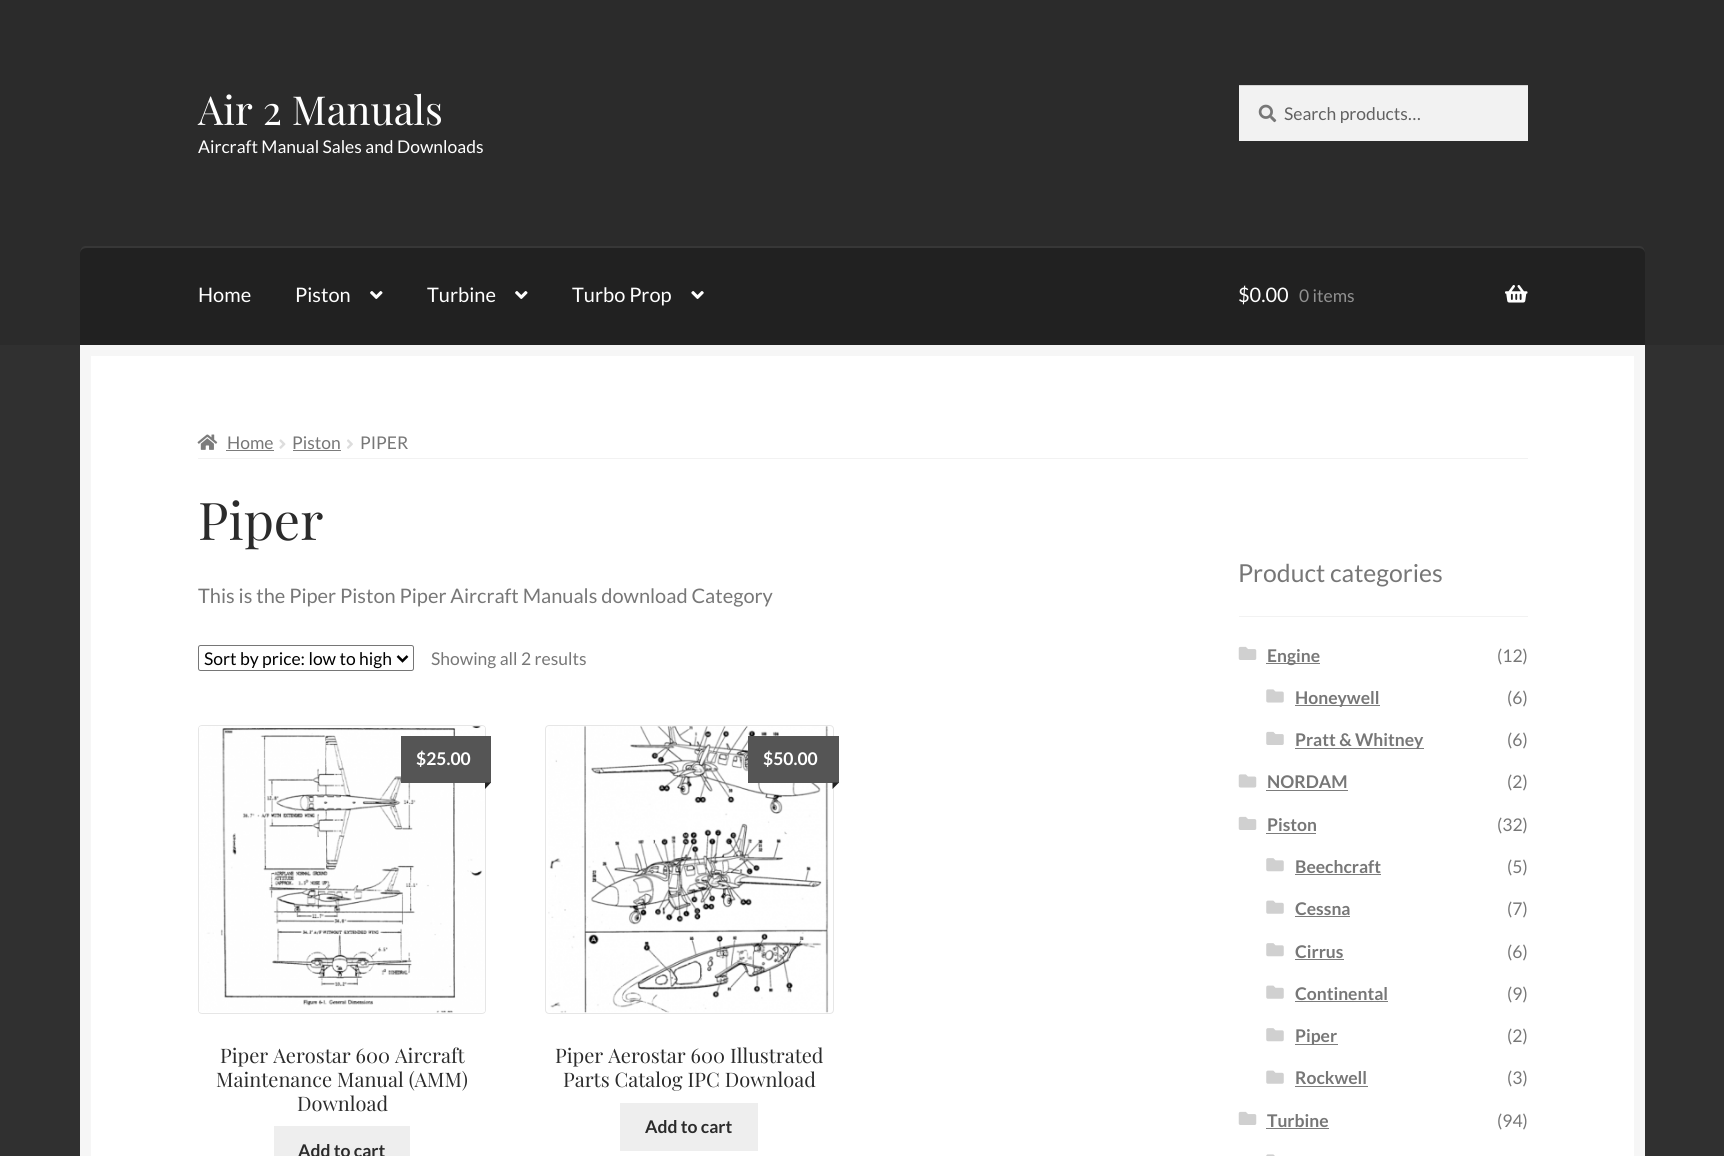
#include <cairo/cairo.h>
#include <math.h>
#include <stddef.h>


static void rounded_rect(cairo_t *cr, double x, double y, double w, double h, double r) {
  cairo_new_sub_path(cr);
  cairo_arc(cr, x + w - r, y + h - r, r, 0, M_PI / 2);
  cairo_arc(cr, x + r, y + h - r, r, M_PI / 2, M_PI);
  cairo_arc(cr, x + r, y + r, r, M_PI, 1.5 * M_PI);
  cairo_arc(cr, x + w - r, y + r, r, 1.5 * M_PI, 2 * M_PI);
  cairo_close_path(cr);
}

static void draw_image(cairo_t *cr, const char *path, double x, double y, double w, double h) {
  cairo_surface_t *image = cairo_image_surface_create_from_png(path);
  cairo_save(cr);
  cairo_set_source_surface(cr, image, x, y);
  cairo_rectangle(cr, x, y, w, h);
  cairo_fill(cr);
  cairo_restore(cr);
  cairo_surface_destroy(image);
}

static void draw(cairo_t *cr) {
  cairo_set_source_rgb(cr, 48 / 255.0, 48 / 255.0, 48 / 255.0);
  cairo_paint(cr);
  cairo_set_source_rgb(cr, 43 / 255.0, 43 / 255.0, 43 / 255.0);
  cairo_rectangle(cr, 0, 0, 1724, 345);
  cairo_fill(cr);
  cairo_set_source_rgb(cr, 242 / 255.0, 242 / 255.0, 242 / 255.0);
  cairo_rectangle(cr, 1239, 86, 289, 55);
  cairo_fill(cr);
  draw_image(cr, "images/1.png", 1258, 104, 19, 19);
  cairo_set_source_rgb(cr, 212 / 255.0, 212 / 255.0, 212 / 255.0);
  cairo_rectangle(cr, 1239, 85, 289, 1);
  cairo_fill(cr);
  cairo_set_source_rgb(cr, 33 / 255.0, 33 / 255.0, 33 / 255.0);
  cairo_new_path(cr);
  cairo_move_to(cr, 86, 246);
  cairo_line_to(cr, 1639, 246);
  cairo_curve_to(cr, 1642.5, 246, 1645, 248.5, 1645, 252);
  cairo_line_to(cr, 1645, 345);
  cairo_line_to(cr, 80, 345);
  cairo_line_to(cr, 80, 252);
  cairo_curve_to(cr, 80, 248.5, 82.5, 246, 86, 246);
  cairo_close_path(cr);
  cairo_fill(cr);
  cairo_set_source_rgba(cr, 1, 1, 1, 0.1);
  cairo_new_path(cr);
  cairo_move_to(cr, 87, 248);
  cairo_line_to(cr, 1638, 248);
  cairo_curve_to(cr, 1642, 248, 1645, 250, 1645, 254);
  cairo_curve_to(cr, 1645, 250, 1644, 246, 1639, 246);
  cairo_line_to(cr, 86, 246);
  cairo_curve_to(cr, 81, 246, 80, 250, 80, 254);
  cairo_curve_to(cr, 80, 250, 83, 248, 87, 248);
  cairo_close_path(cr);
  cairo_fill(cr);
  draw_image(cr, "images/2.png", 370, 291, 13, 8);
  draw_image(cr, "images/2.png", 515, 291, 13, 8);
  draw_image(cr, "images/3.png", 691, 291, 13, 8);
  draw_image(cr, "images/4.png", 1505, 285, 23, 18);
  cairo_set_source_rgb(cr, 1, 1, 1);
  cairo_rectangle(cr, 85.5, 350.5, 1554, 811);
  cairo_fill_preserve(cr);
  cairo_set_source_rgb(cr, 246 / 255.0, 246 / 255.0, 246 / 255.0);
  cairo_set_line_width(cr, 11);
  cairo_stroke(cr);
  cairo_set_source_rgb(cr, 242 / 255.0, 242 / 255.0, 242 / 255.0);
  cairo_rectangle(cr, 198, 458, 1330, 1);
  cairo_fill(cr);
  draw_image(cr, "images/5.png", 197, 434, 21, 16);
  cairo_set_source_rgb(cr, 124 / 255.0, 124 / 255.0, 124 / 255.0);
  cairo_rectangle(cr, 226, 450, 48, 1);
  cairo_fill(cr);
  draw_image(cr, "images/6.png", 279, 439, 7, 10);
  cairo_rectangle(cr, 293, 450, 48, 1);
  cairo_fill(cr);
  draw_image(cr, "images/7.png", 347, 439, 6, 10);
  rounded_rect(cr, 198.5, 645.5, 215, 25, 2);
  cairo_set_source_rgb(cr, 118 / 255.0, 118 / 255.0, 118 / 255.0);
  cairo_set_line_width(cr, 1);
  cairo_stroke(cr);
  cairo_new_path(cr);
  cairo_move_to(cr, 397.5, 656);
  cairo_line_to(cr, 402.5, 661);
  cairo_line_to(cr, 407.5, 656);
  cairo_set_source_rgb(cr, 0, 0, 0);
  cairo_set_line_width(cr, 2.5);
  cairo_stroke(cr);
  rounded_rect(cr, 198.5, 725.5, 287, 288, 3.5);
  cairo_set_source_rgb(cr, 230 / 255.0, 230 / 255.0, 230 / 255.0);
  cairo_set_line_width(cr, 1);
  cairo_stroke(cr);
  draw_image(cr, "images/8.png", 199, 726, 286, 287);
  cairo_set_source_rgb(cr, 85 / 255.0, 85 / 255.0, 85 / 255.0);
  cairo_new_path(cr);
  cairo_move_to(cr, 408, 736);
  cairo_line_to(cr, 485, 736);
  cairo_line_to(cr, 485, 782);
  cairo_line_to(cr, 408, 782);
  cairo_line_to(cr, 408, 783);
  cairo_line_to(cr, 491, 783);
  cairo_line_to(cr, 491, 736);
  cairo_close_path(cr);
  cairo_fill(cr);
  cairo_rectangle(cr, 401, 736, 84, 47);
  cairo_fill(cr);
  cairo_set_source_rgb(cr, 34 / 255.0, 34 / 255.0, 34 / 255.0);
  cairo_new_path(cr);
  cairo_move_to(cr, 485, 782.5);
  cairo_line_to(cr, 491, 782.5);
  cairo_line_to(cr, 485, 789);
  cairo_close_path(cr);
  cairo_fill(cr);
  cairo_set_source_rgb(cr, 238 / 255.0, 238 / 255.0, 238 / 255.0);
  cairo_rectangle(cr, 274, 1126, 136, 30);
  cairo_fill(cr);
  rounded_rect(cr, 545.5, 725.5, 288, 288, 3.5);
  cairo_set_source_rgb(cr, 230 / 255.0, 230 / 255.0, 230 / 255.0);
  cairo_stroke(cr);
  draw_image(cr, "images/9.png", 548, 726, 281, 287);
  cairo_set_source_rgb(cr, 85 / 255.0, 85 / 255.0, 85 / 255.0);
  cairo_new_path(cr);
  cairo_move_to(cr, 754, 736);
  cairo_line_to(cr, 832, 736);
  cairo_line_to(cr, 832, 782);
  cairo_line_to(cr, 754, 782);
  cairo_line_to(cr, 754, 783);
  cairo_line_to(cr, 839, 783);
  cairo_line_to(cr, 839, 736);
  cairo_close_path(cr);
  cairo_fill(cr);
  cairo_rectangle(cr, 748, 736, 84, 47);
  cairo_fill(cr);
  cairo_set_source_rgb(cr, 34 / 255.0, 34 / 255.0, 34 / 255.0);
  cairo_new_path(cr);
  cairo_move_to(cr, 832.5, 782.5);
  cairo_line_to(cr, 839, 782.5);
  cairo_line_to(cr, 832.5, 789);
  cairo_close_path(cr);
  cairo_fill(cr);
  cairo_set_source_rgb(cr, 238 / 255.0, 238 / 255.0, 238 / 255.0);
  cairo_rectangle(cr, 620, 1103, 138, 48);
  cairo_fill(cr);
  cairo_set_source_rgb(cr, 242 / 255.0, 242 / 255.0, 242 / 255.0);
  cairo_rectangle(cr, 1239, 616, 289, 1);
  cairo_fill(cr);
  draw_image(cr, "images/10.png", 1238, 646, 19, 14);
  cairo_set_source_rgb(cr, 124 / 255.0, 124 / 255.0, 124 / 255.0);
  cairo_rectangle(cr, 1266, 663, 54, 1);
  cairo_fill(cr);
  draw_image(cr, "images/11.png", 1266, 689, 18, 14);
  cairo_rectangle(cr, 1295, 705, 85, 1);
  cairo_fill(cr);
  draw_image(cr, "images/12.png", 1266, 731, 18, 14);
  cairo_rectangle(cr, 1295, 748, 129, 1);
  cairo_fill(cr);
  draw_image(cr, "images/13.png", 1238, 774, 19, 14);
  cairo_rectangle(cr, 1266, 790, 82, 1);
  cairo_fill(cr);
  draw_image(cr, "images/10.png", 1238, 816, 19, 14);
  cairo_rectangle(cr, 1266, 833, 50, 1);
  cairo_fill(cr);
  draw_image(cr, "images/14.png", 1266, 858, 18, 14);
  cairo_rectangle(cr, 1295, 874, 86, 1);
  cairo_fill(cr);
  draw_image(cr, "images/15.png", 1266, 900, 18, 14);
  cairo_rectangle(cr, 1295, 916, 55, 1);
  cairo_fill(cr);
  draw_image(cr, "images/14.png", 1266, 943, 18, 14);
  cairo_rectangle(cr, 1295, 959, 49, 1);
  cairo_fill(cr);
  draw_image(cr, "images/15.png", 1266, 985, 18, 14);
  cairo_rectangle(cr, 1295, 1001, 93, 1);
  cairo_fill(cr);
  draw_image(cr, "images/14.png", 1266, 1028, 18, 14);
  cairo_rectangle(cr, 1295, 1044, 43, 1);
  cairo_fill(cr);
  draw_image(cr, "images/15.png", 1266, 1070, 18, 14);
  cairo_rectangle(cr, 1295, 1086, 73, 1);
  cairo_fill(cr);
  draw_image(cr, "images/10.png", 1238, 1111, 19, 14);
  cairo_rectangle(cr, 1266, 1128, 63, 1);
  cairo_fill(cr);
  draw_image(cr, "images/16.png", 1266, 1154, 9, 2);
  cairo_select_font_face(cr, "Playfair Display", CAIRO_FONT_SLANT_NORMAL, CAIRO_FONT_WEIGHT_NORMAL);
  cairo_set_font_size(cr, 40);
  cairo_set_source_rgb(cr, 1, 1, 1);
  cairo_move_to(cr, 198, 125);
  cairo_show_text(cr, "Air 2 Manuals");
  cairo_select_font_face(cr, "Lato", CAIRO_FONT_SLANT_NORMAL, CAIRO_FONT_WEIGHT_NORMAL);
  cairo_set_font_size(cr, 17.5);
  cairo_move_to(cr, 198, 153);
  cairo_show_text(cr, "Aircraft Manual Sales and Downloads");
  cairo_set_source_rgb(cr, 97 / 255.0, 97 / 255.0, 97 / 255.0);
  cairo_move_to(cr, 1284, 120);
  cairo_show_text(cr, "Search products…");
  cairo_set_font_size(cr, 20);
  cairo_set_source_rgb(cr, 1, 1, 1);
  cairo_move_to(cr, 198, 302);
  cairo_show_text(cr, "Home");
  cairo_move_to(cr, 295, 302);
  cairo_show_text(cr, "Piston");
  cairo_move_to(cr, 427, 302);
  cairo_show_text(cr, "Turbine");
  cairo_move_to(cr, 572, 302);
  cairo_show_text(cr, "Turbo Prop");
  cairo_move_to(cr, 1238, 302);
  cairo_show_text(cr, "$0.00");
  cairo_set_font_size(cr, 17.5);
  cairo_set_source_rgb(cr, 144 / 255.0, 144 / 255.0, 144 / 255.0);
  cairo_move_to(cr, 1299, 302);
  cairo_show_text(cr, "0 items");
  cairo_set_source_rgb(cr, 119 / 255.0, 119 / 255.0, 119 / 255.0);
  cairo_move_to(cr, 227, 449);
  cairo_show_text(cr, "Home");
  cairo_move_to(cr, 292, 449);
  cairo_show_text(cr, "Piston");
  cairo_move_to(cr, 360, 449);
  cairo_show_text(cr, "PIPER");
  cairo_select_font_face(cr, "Playfair Display", CAIRO_FONT_SLANT_NORMAL, CAIRO_FONT_WEIGHT_NORMAL);
  cairo_set_font_size(cr, 52);
  cairo_set_source_rgb(cr, 43 / 255.0, 43 / 255.0, 43 / 255.0);
  cairo_move_to(cr, 198, 540);
  cairo_show_text(cr, "Piper");
  cairo_select_font_face(cr, "Lato", CAIRO_FONT_SLANT_NORMAL, CAIRO_FONT_WEIGHT_NORMAL);
  cairo_set_font_size(cr, 20);
  cairo_set_source_rgb(cr, 119 / 255.0, 119 / 255.0, 119 / 255.0);
  cairo_move_to(cr, 198, 603);
  cairo_show_text(cr, "This is the Piper Piston Piper Aircraft Manuals download Category");
  cairo_set_font_size(cr, 17.5);
  cairo_set_source_rgb(cr, 0, 0, 0);
  cairo_move_to(cr, 204, 665);
  cairo_show_text(cr, "Sort by price: low to high");
  cairo_set_source_rgb(cr, 119 / 255.0, 119 / 255.0, 119 / 255.0);
  cairo_move_to(cr, 431, 665);
  cairo_show_text(cr, "Showing all 2 results");
  cairo_select_font_face(cr, "Lato", CAIRO_FONT_SLANT_NORMAL, CAIRO_FONT_WEIGHT_BOLD);
  cairo_set_source_rgb(cr, 1, 1, 1);
  cairo_move_to(cr, 416, 765);
  cairo_show_text(cr, "$25.00");
  cairo_select_font_face(cr, "Playfair Display", CAIRO_FONT_SLANT_NORMAL, CAIRO_FONT_WEIGHT_NORMAL);
  cairo_set_font_size(cr, 20);
  cairo_set_source_rgb(cr, 43 / 255.0, 43 / 255.0, 43 / 255.0);
  cairo_move_to(cr, 220, 1063);
  cairo_show_text(cr, "Piper Aerostar 600 Aircraft");
  cairo_move_to(cr, 216, 1087);
  cairo_show_text(cr, "Maintenance Manual (AMM)");
  cairo_move_to(cr, 297, 1111);
  cairo_show_text(cr, "Download");
  cairo_select_font_face(cr, "Lato", CAIRO_FONT_SLANT_NORMAL, CAIRO_FONT_WEIGHT_BOLD);
  cairo_set_font_size(cr, 17.5);
  cairo_move_to(cr, 298, 1157);
  cairo_show_text(cr, "Add to cart");
  cairo_set_source_rgb(cr, 1, 1, 1);
  cairo_move_to(cr, 763, 765);
  cairo_show_text(cr, "$50.00");
  cairo_select_font_face(cr, "Playfair Display", CAIRO_FONT_SLANT_NORMAL, CAIRO_FONT_WEIGHT_NORMAL);
  cairo_set_font_size(cr, 20);
  cairo_set_source_rgb(cr, 43 / 255.0, 43 / 255.0, 43 / 255.0);
  cairo_move_to(cr, 555, 1063);
  cairo_show_text(cr, "Piper Aerostar 600 Illustrated");
  cairo_move_to(cr, 563, 1087);
  cairo_show_text(cr, "Parts Catalog IPC Download");
  cairo_select_font_face(cr, "Lato", CAIRO_FONT_SLANT_NORMAL, CAIRO_FONT_WEIGHT_BOLD);
  cairo_set_font_size(cr, 17.5);
  cairo_move_to(cr, 645, 1133);
  cairo_show_text(cr, "Add to cart");
  cairo_select_font_face(cr, "Lato", CAIRO_FONT_SLANT_NORMAL, CAIRO_FONT_WEIGHT_NORMAL);
  cairo_set_font_size(cr, 24.75);
  cairo_set_source_rgb(cr, 119 / 255.0, 119 / 255.0, 119 / 255.0);
  cairo_move_to(cr, 1238, 582);
  cairo_show_text(cr, "Product categories");
  cairo_select_font_face(cr, "Lato", CAIRO_FONT_SLANT_NORMAL, CAIRO_FONT_WEIGHT_BOLD);
  cairo_set_font_size(cr, 17.5);
  cairo_move_to(cr, 1267, 662);
  cairo_show_text(cr, "Engine");
  cairo_select_font_face(cr, "Lato", CAIRO_FONT_SLANT_NORMAL, CAIRO_FONT_WEIGHT_NORMAL);
  cairo_move_to(cr, 1497, 662);
  cairo_show_text(cr, "(12)");
  cairo_select_font_face(cr, "Lato", CAIRO_FONT_SLANT_NORMAL, CAIRO_FONT_WEIGHT_BOLD);
  cairo_move_to(cr, 1295, 704);
  cairo_show_text(cr, "Honeywell");
  cairo_select_font_face(cr, "Lato", CAIRO_FONT_SLANT_NORMAL, CAIRO_FONT_WEIGHT_NORMAL);
  cairo_move_to(cr, 1507, 704);
  cairo_show_text(cr, "(6)");
  cairo_select_font_face(cr, "Lato", CAIRO_FONT_SLANT_NORMAL, CAIRO_FONT_WEIGHT_BOLD);
  cairo_move_to(cr, 1295, 746);
  cairo_show_text(cr, "Pratt & Whitney");
  cairo_select_font_face(cr, "Lato", CAIRO_FONT_SLANT_NORMAL, CAIRO_FONT_WEIGHT_NORMAL);
  cairo_move_to(cr, 1507, 746);
  cairo_show_text(cr, "(6)");
  cairo_select_font_face(cr, "Lato", CAIRO_FONT_SLANT_NORMAL, CAIRO_FONT_WEIGHT_BOLD);
  cairo_move_to(cr, 1267, 788);
  cairo_show_text(cr, "NORDAM");
  cairo_select_font_face(cr, "Lato", CAIRO_FONT_SLANT_NORMAL, CAIRO_FONT_WEIGHT_NORMAL);
  cairo_move_to(cr, 1507, 788);
  cairo_show_text(cr, "(2)");
  cairo_select_font_face(cr, "Lato", CAIRO_FONT_SLANT_NORMAL, CAIRO_FONT_WEIGHT_BOLD);
  cairo_move_to(cr, 1267, 831);
  cairo_show_text(cr, "Piston");
  cairo_select_font_face(cr, "Lato", CAIRO_FONT_SLANT_NORMAL, CAIRO_FONT_WEIGHT_NORMAL);
  cairo_move_to(cr, 1497, 831);
  cairo_show_text(cr, "(32)");
  cairo_select_font_face(cr, "Lato", CAIRO_FONT_SLANT_NORMAL, CAIRO_FONT_WEIGHT_BOLD);
  cairo_move_to(cr, 1295, 873);
  cairo_show_text(cr, "Beechcraft");
  cairo_select_font_face(cr, "Lato", CAIRO_FONT_SLANT_NORMAL, CAIRO_FONT_WEIGHT_NORMAL);
  cairo_move_to(cr, 1507, 873);
  cairo_show_text(cr, "(5)");
  cairo_select_font_face(cr, "Lato", CAIRO_FONT_SLANT_NORMAL, CAIRO_FONT_WEIGHT_BOLD);
  cairo_move_to(cr, 1295, 915);
  cairo_show_text(cr, "Cessna");
  cairo_select_font_face(cr, "Lato", CAIRO_FONT_SLANT_NORMAL, CAIRO_FONT_WEIGHT_NORMAL);
  cairo_move_to(cr, 1507, 915);
  cairo_show_text(cr, "(7)");
  cairo_select_font_face(cr, "Lato", CAIRO_FONT_SLANT_NORMAL, CAIRO_FONT_WEIGHT_BOLD);
  cairo_move_to(cr, 1295, 958);
  cairo_show_text(cr, "Cirrus");
  cairo_select_font_face(cr, "Lato", CAIRO_FONT_SLANT_NORMAL, CAIRO_FONT_WEIGHT_NORMAL);
  cairo_move_to(cr, 1507, 958);
  cairo_show_text(cr, "(6)");
  cairo_select_font_face(cr, "Lato", CAIRO_FONT_SLANT_NORMAL, CAIRO_FONT_WEIGHT_BOLD);
  cairo_move_to(cr, 1295, 1000);
  cairo_show_text(cr, "Continental");
  cairo_select_font_face(cr, "Lato", CAIRO_FONT_SLANT_NORMAL, CAIRO_FONT_WEIGHT_NORMAL);
  cairo_move_to(cr, 1507, 1000);
  cairo_show_text(cr, "(9)");
  cairo_select_font_face(cr, "Lato", CAIRO_FONT_SLANT_NORMAL, CAIRO_FONT_WEIGHT_BOLD);
  cairo_move_to(cr, 1295, 1042);
  cairo_show_text(cr, "Piper");
  cairo_select_font_face(cr, "Lato", CAIRO_FONT_SLANT_NORMAL, CAIRO_FONT_WEIGHT_NORMAL);
  cairo_move_to(cr, 1507, 1042);
  cairo_show_text(cr, "(2)");
  cairo_select_font_face(cr, "Lato", CAIRO_FONT_SLANT_NORMAL, CAIRO_FONT_WEIGHT_BOLD);
  cairo_move_to(cr, 1295, 1084);
  cairo_show_text(cr, "Rockwell");
  cairo_select_font_face(cr, "Lato", CAIRO_FONT_SLANT_NORMAL, CAIRO_FONT_WEIGHT_NORMAL);
  cairo_move_to(cr, 1507, 1084);
  cairo_show_text(cr, "(3)");
  cairo_select_font_face(cr, "Lato", CAIRO_FONT_SLANT_NORMAL, CAIRO_FONT_WEIGHT_BOLD);
  cairo_move_to(cr, 1267, 1127);
  cairo_show_text(cr, "Turbine");
  cairo_select_font_face(cr, "Lato", CAIRO_FONT_SLANT_NORMAL, CAIRO_FONT_WEIGHT_NORMAL);
  cairo_move_to(cr, 1497, 1127);
  cairo_show_text(cr, "(94)");
}

int main(void) {
  cairo_surface_t *surface = cairo_image_surface_create(CAIRO_FORMAT_RGB24, 1724, 1156);
  cairo_t *cr = cairo_create(surface);
  cairo_font_options_t *options = cairo_font_options_create();
  cairo_font_options_set_hint_metrics(options, CAIRO_HINT_METRICS_OFF);
  cairo_font_options_set_hint_style(options, CAIRO_HINT_STYLE_NONE);
  cairo_set_font_options(cr, options);
  cairo_set_miter_limit(cr, 4);
  draw(cr);
  cairo_surface_write_to_png(surface, "out.png");
  cairo_font_options_destroy(options);
  cairo_destroy(cr);
  cairo_surface_destroy(surface);
  return 0;
}
